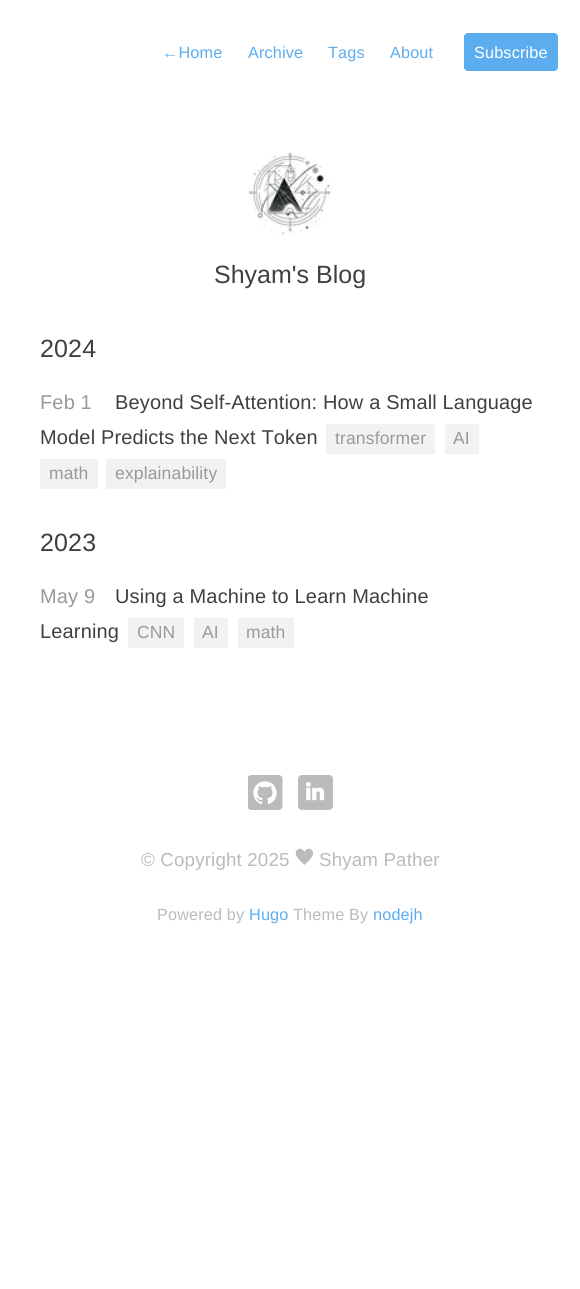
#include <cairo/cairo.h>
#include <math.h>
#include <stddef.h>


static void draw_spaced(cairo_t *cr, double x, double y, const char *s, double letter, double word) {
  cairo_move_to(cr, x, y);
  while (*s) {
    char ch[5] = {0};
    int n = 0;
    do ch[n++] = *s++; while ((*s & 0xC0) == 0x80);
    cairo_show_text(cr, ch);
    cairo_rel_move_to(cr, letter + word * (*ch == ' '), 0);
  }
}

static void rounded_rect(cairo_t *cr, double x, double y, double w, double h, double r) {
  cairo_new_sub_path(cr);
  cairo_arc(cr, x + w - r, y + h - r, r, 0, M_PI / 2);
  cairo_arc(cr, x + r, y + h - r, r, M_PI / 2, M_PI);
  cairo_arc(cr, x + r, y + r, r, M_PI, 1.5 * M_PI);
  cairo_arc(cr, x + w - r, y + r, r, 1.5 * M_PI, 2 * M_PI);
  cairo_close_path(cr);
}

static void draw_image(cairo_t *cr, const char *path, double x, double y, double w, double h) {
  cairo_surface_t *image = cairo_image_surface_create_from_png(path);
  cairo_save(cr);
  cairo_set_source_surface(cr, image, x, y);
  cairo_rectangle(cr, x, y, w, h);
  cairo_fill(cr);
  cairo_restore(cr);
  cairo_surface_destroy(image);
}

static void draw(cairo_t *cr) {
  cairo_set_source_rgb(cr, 1, 1, 1);
  cairo_paint(cr);
  cairo_set_source_rgb(cr, 91 / 255.0, 173 / 255.0, 240 / 255.0);
  rounded_rect(cr, 464, 33, 94, 38, 4);
  cairo_fill(cr);
  draw_image(cr, "images/1.png", 248, 152, 83, 84);
  cairo_set_source_rgb(cr, 242 / 255.0, 242 / 255.0, 242 / 255.0);
  cairo_rectangle(cr, 326, 424, 109, 30);
  cairo_fill(cr);
  cairo_rectangle(cr, 445, 424, 34, 30);
  cairo_fill(cr);
  cairo_rectangle(cr, 40, 459, 58, 30);
  cairo_fill(cr);
  cairo_rectangle(cr, 106, 459, 120, 30);
  cairo_fill(cr);
  cairo_rectangle(cr, 128, 618, 56, 30);
  cairo_fill(cr);
  cairo_rectangle(cr, 194, 618, 34, 30);
  cairo_fill(cr);
  cairo_rectangle(cr, 238, 618, 56, 30);
  cairo_fill(cr);
  draw_image(cr, "images/2.png", 248, 775, 35, 35);
  draw_image(cr, "images/3.png", 298, 775, 35, 35);
  draw_image(cr, "images/4.png", 295, 848, 19, 17);
  cairo_select_font_face(cr, "Liberation Sans", CAIRO_FONT_SLANT_NORMAL, CAIRO_FONT_WEIGHT_NORMAL);
  cairo_set_font_size(cr, 16.25);
  cairo_set_source_rgb(cr, 91 / 255.0, 173 / 255.0, 240 / 255.0);
  draw_spaced(cr, 162, 58, "←Home", 0.15, 0);
  draw_spaced(cr, 248, 58, "Archive", 0.15, 0);
  draw_spaced(cr, 328, 58, "Tags", 0.15, 0);
  draw_spaced(cr, 390, 58, "About", 0.15, 0);
  cairo_set_source_rgb(cr, 1, 1, 1);
  draw_spaced(cr, 474, 58, "Subscribe", 0.15, 0);
  cairo_set_font_size(cr, 25);
  cairo_set_source_rgb(cr, 64 / 255.0, 64 / 255.0, 64 / 255.0);
  cairo_move_to(cr, 214, 283);
  cairo_show_text(cr, "Shyam's Blog");
  draw_spaced(cr, 40, 357, "2024", 0.15, 0);
  cairo_set_font_size(cr, 20);
  cairo_set_source_rgb(cr, 153 / 255.0, 153 / 255.0, 153 / 255.0);
  draw_spaced(cr, 40, 409, "Feb 1", 0.15, 0);
  cairo_set_source_rgb(cr, 64 / 255.0, 64 / 255.0, 64 / 255.0);
  draw_spaced(cr, 115, 409, "Beyond Self-Attention: How a Small Language", 0.15, 0);
  draw_spaced(cr, 40, 444, "Model Predicts the Next Token", 0.15, 0);
  cairo_set_font_size(cr, 17.5);
  cairo_set_source_rgb(cr, 153 / 255.0, 153 / 255.0, 153 / 255.0);
  draw_spaced(cr, 335, 444, "transformer", 0.15, 0);
  draw_spaced(cr, 453, 444, "AI", 0.15, 0);
  draw_spaced(cr, 49, 479, "math", 0.15, 0);
  draw_spaced(cr, 115, 479, "explainability", 0.15, 0);
  cairo_set_font_size(cr, 25);
  cairo_set_source_rgb(cr, 64 / 255.0, 64 / 255.0, 64 / 255.0);
  draw_spaced(cr, 40, 551, "2023", 0.15, 0);
  cairo_set_font_size(cr, 20);
  cairo_set_source_rgb(cr, 153 / 255.0, 153 / 255.0, 153 / 255.0);
  draw_spaced(cr, 40, 603, "May 9", 0.15, 0);
  cairo_set_source_rgb(cr, 64 / 255.0, 64 / 255.0, 64 / 255.0);
  draw_spaced(cr, 115, 603, "Using a Machine to Learn Machine", 0.15, 0);
  draw_spaced(cr, 40, 638, "Learning", 0.15, 0);
  cairo_set_font_size(cr, 17.5);
  cairo_set_source_rgb(cr, 153 / 255.0, 153 / 255.0, 153 / 255.0);
  draw_spaced(cr, 137, 638, "CNN", 0.15, 0);
  draw_spaced(cr, 202, 638, "AI", 0.15, 0);
  draw_spaced(cr, 246, 638, "math", 0.15, 0);
  cairo_set_font_size(cr, 18.75);
  cairo_set_source_rgb(cr, 187 / 255.0, 187 / 255.0, 187 / 255.0);
  draw_spaced(cr, 141, 866, "© Copyright 2025", 0.15, 0);
  draw_spaced(cr, 319, 866, "Shyam Pather", 0.15, 0);
  cairo_set_font_size(cr, 16.25);
  draw_spaced(cr, 157, 920, "Powered by", 0.15, 0);
  cairo_set_source_rgb(cr, 91 / 255.0, 173 / 255.0, 240 / 255.0);
  draw_spaced(cr, 249, 920, "Hugo", 0.15, 0);
  cairo_set_source_rgb(cr, 187 / 255.0, 187 / 255.0, 187 / 255.0);
  draw_spaced(cr, 293, 920, "Theme By", 0.15, 0);
  cairo_set_source_rgb(cr, 91 / 255.0, 173 / 255.0, 240 / 255.0);
  draw_spaced(cr, 373, 920, "nodejh", 0.15, 0);
}

int main(void) {
  cairo_surface_t *surface = cairo_image_surface_create(CAIRO_FORMAT_RGB24, 580, 1289);
  cairo_t *cr = cairo_create(surface);
  cairo_font_options_t *options = cairo_font_options_create();
  cairo_font_options_set_hint_metrics(options, CAIRO_HINT_METRICS_OFF);
  cairo_font_options_set_hint_style(options, CAIRO_HINT_STYLE_NONE);
  cairo_set_font_options(cr, options);
  cairo_set_miter_limit(cr, 4);
  draw(cr);
  cairo_surface_write_to_png(surface, "out.png");
  cairo_font_options_destroy(options);
  cairo_destroy(cr);
  cairo_surface_destroy(surface);
  return 0;
}
